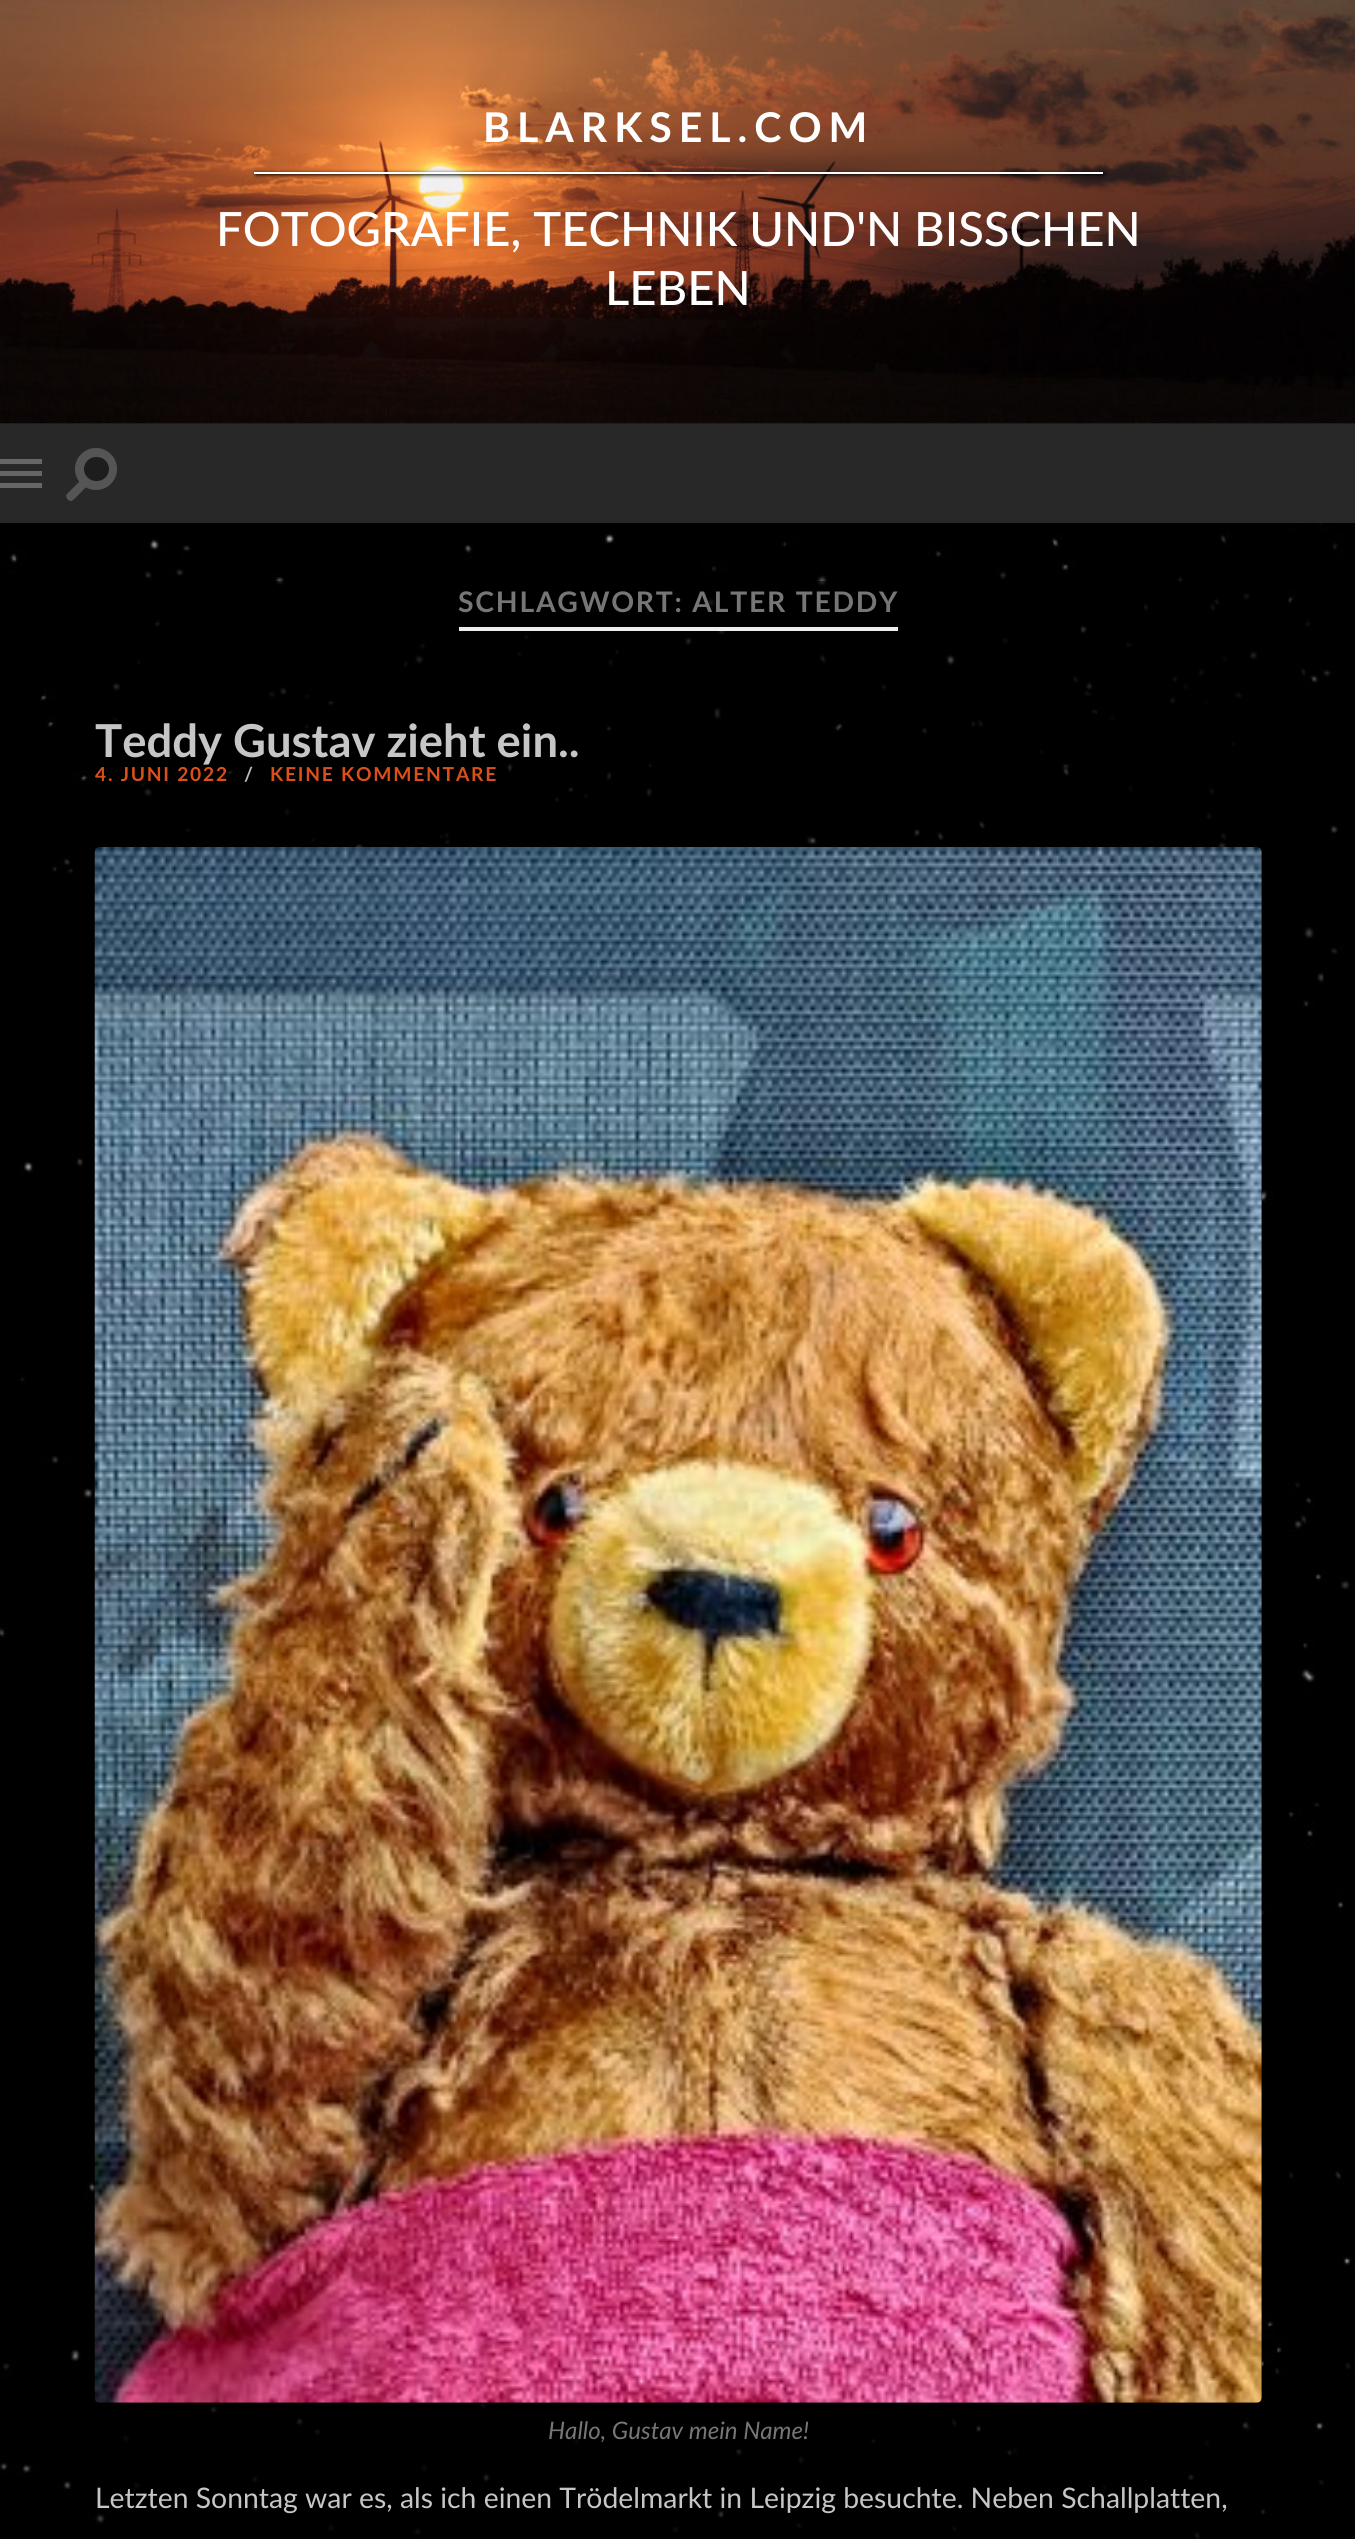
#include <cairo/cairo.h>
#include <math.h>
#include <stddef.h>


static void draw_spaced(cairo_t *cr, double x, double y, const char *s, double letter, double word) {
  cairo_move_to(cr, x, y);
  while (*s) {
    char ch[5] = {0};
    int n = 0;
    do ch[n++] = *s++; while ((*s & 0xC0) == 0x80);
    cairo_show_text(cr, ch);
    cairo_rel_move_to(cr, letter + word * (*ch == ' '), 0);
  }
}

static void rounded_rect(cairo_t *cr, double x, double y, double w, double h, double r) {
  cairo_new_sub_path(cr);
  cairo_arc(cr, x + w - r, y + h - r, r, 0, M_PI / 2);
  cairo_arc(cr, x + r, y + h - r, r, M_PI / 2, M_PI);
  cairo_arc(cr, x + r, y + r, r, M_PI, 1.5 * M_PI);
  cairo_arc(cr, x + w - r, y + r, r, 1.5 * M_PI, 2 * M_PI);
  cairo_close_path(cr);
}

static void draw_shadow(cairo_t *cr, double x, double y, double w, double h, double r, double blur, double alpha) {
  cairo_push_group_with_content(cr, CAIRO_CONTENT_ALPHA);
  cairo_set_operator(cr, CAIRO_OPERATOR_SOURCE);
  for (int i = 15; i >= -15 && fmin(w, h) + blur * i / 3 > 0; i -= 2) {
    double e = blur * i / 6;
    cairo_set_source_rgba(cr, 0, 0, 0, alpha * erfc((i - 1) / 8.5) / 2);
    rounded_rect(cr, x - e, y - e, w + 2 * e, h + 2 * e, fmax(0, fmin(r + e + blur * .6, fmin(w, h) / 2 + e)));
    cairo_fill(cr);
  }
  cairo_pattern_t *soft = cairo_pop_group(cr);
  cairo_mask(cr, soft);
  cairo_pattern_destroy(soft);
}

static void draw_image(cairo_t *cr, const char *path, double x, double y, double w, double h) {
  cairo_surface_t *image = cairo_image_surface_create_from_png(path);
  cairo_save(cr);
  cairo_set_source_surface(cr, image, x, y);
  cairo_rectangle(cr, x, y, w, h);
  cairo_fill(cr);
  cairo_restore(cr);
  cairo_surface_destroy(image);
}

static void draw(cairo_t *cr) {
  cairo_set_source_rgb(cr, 1, 1, 1);
  cairo_paint(cr);
  draw_image(cr, "images/1.png", 0, 523, 1355, 2016);
  cairo_set_source_rgb(cr, 38 / 255.0, 38 / 255.0, 38 / 255.0);
  cairo_rectangle(cr, 0, 423, 1355, 1);
  cairo_fill(cr);
  draw_image(cr, "images/2.png", 0, 0, 1355, 424);
  cairo_set_source_rgb(cr, 0, 0, 0);
  draw_shadow(cr, 256, 173, 848, 2, 0, 2, 1);
  cairo_set_source_rgb(cr, 1, 1, 1);
  cairo_rectangle(cr, 254, 172, 849, 2);
  cairo_fill(cr);
  cairo_set_source_rgb(cr, 40 / 255.0, 40 / 255.0, 40 / 255.0);
  cairo_rectangle(cr, 0, 424, 1355, 99);
  cairo_fill(cr);
  cairo_set_source_rgb(cr, 102 / 255.0, 102 / 255.0, 102 / 255.0);
  cairo_rectangle(cr, 0, 459, 42, 5);
  cairo_fill(cr);
  cairo_rectangle(cr, 0, 471, 42, 5);
  cairo_fill(cr);
  cairo_rectangle(cr, 0, 483, 42, 5);
  cairo_fill(cr);
  cairo_set_source_rgb(cr, 85 / 255.0, 85 / 255.0, 85 / 255.0);
  cairo_arc(cr, 96, 469, 21, 0, 2 * M_PI);
  cairo_fill(cr);
  cairo_set_source_rgb(cr, 29 / 255.0, 29 / 255.0, 29 / 255.0);
  rounded_rect(cr, 84, 457, 25, 24, 12);
  cairo_fill(cr);
  cairo_set_source_rgb(cr, 85 / 255.0, 85 / 255.0, 85 / 255.0);
  cairo_new_path(cr);
  cairo_move_to(cr, 67, 494);
  cairo_line_to(cr, 82, 479);
  cairo_line_to(cr, 88, 485);
  cairo_curve_to(cr, 85.5, 487.5, 73.5, 500.5, 71.5, 501);
  cairo_curve_to(cr, 68, 501.5, 64.5, 496.5, 67, 494);
  cairo_close_path(cr);
  cairo_fill(cr);
  cairo_set_source_rgba(cr, 0, 0, 0, 0.6);
  cairo_rectangle(cr, 95, 581, 1167, 1958);
  cairo_fill(cr);
  cairo_set_source_rgb(cr, 238 / 255.0, 238 / 255.0, 238 / 255.0);
  cairo_rectangle(cr, 459, 627, 439, 4);
  cairo_fill(cr);
  draw_image(cr, "images/3.png", 94, 847, 1168, 1556);
  cairo_select_font_face(cr, "Lato", CAIRO_FONT_SLANT_NORMAL, CAIRO_FONT_WEIGHT_BOLD);
  cairo_set_font_size(cr, 41);
  cairo_set_source_rgb(cr, 1, 1, 1);
  draw_spaced(cr, 483, 142, "BLARKSEL.COM", 7, 0);
  cairo_select_font_face(cr, "Lato Medium", CAIRO_FONT_SLANT_NORMAL, CAIRO_FONT_WEIGHT_NORMAL);
  cairo_set_font_size(cr, 47.25);
  cairo_move_to(cr, 216, 246);
  cairo_show_text(cr, "FOTOGRAFIE, TECHNIK UND'N BISSCHEN");
  cairo_move_to(cr, 605, 305);
  cairo_show_text(cr, "LEBEN");
  cairo_select_font_face(cr, "Lato", CAIRO_FONT_SLANT_NORMAL, CAIRO_FONT_WEIGHT_BOLD);
  cairo_set_font_size(cr, 28.35);
  cairo_set_source_rgb(cr, 118 / 255.0, 118 / 255.0, 118 / 255.0);
  draw_spaced(cr, 458, 612, "SCHLAGWORT: ALTER TEDDY", 1.75, 0);
  cairo_set_font_size(cr, 45.4);
  cairo_set_source_rgb(cr, 199 / 255.0, 198 / 255.0, 198 / 255.0);
  cairo_move_to(cr, 95, 757);
  cairo_show_text(cr, "Teddy Gustav zieht ein..");
  cairo_set_font_size(cr, 19.25);
  cairo_set_source_rgb(cr, 219 / 255.0, 79 / 255.0, 24 / 255.0);
  draw_spaced(cr, 95, 781, "4. JUNI 2022", 1.75, 0);
  cairo_set_source_rgb(cr, 187 / 255.0, 187 / 255.0, 187 / 255.0);
  draw_spaced(cr, 244, 781, "/", 1.75, 0);
  cairo_set_source_rgb(cr, 219 / 255.0, 79 / 255.0, 24 / 255.0);
  draw_spaced(cr, 270, 781, "KEINE KOMMENTARE", 1.75, 0);
  cairo_select_font_face(cr, "Lato", CAIRO_FONT_SLANT_ITALIC, CAIRO_FONT_WEIGHT_NORMAL);
  cairo_set_font_size(cr, 24.1);
  cairo_set_source_rgb(cr, 118 / 255.0, 118 / 255.0, 118 / 255.0);
  cairo_move_to(cr, 548, 2439);
  cairo_show_text(cr, "Hallo, Gustav mein Name!");
  cairo_select_font_face(cr, "Lato", CAIRO_FONT_SLANT_NORMAL, CAIRO_FONT_WEIGHT_NORMAL);
  cairo_set_font_size(cr, 28.35);
  cairo_set_source_rgb(cr, 199 / 255.0, 198 / 255.0, 198 / 255.0);
  cairo_move_to(cr, 95, 2508);
  cairo_show_text(cr, "Letzten Sonntag war es, als ich einen Trödelmarkt in Leipzig besuchte. Neben Schallplatten,");
}

int main(void) {
  cairo_surface_t *surface = cairo_image_surface_create(CAIRO_FORMAT_RGB24, 1355, 2539);
  cairo_t *cr = cairo_create(surface);
  cairo_font_options_t *options = cairo_font_options_create();
  cairo_font_options_set_hint_metrics(options, CAIRO_HINT_METRICS_OFF);
  cairo_font_options_set_hint_style(options, CAIRO_HINT_STYLE_NONE);
  cairo_set_font_options(cr, options);
  cairo_set_miter_limit(cr, 4);
  draw(cr);
  cairo_surface_write_to_png(surface, "out.png");
  cairo_font_options_destroy(options);
  cairo_destroy(cr);
  cairo_surface_destroy(surface);
  return 0;
}
